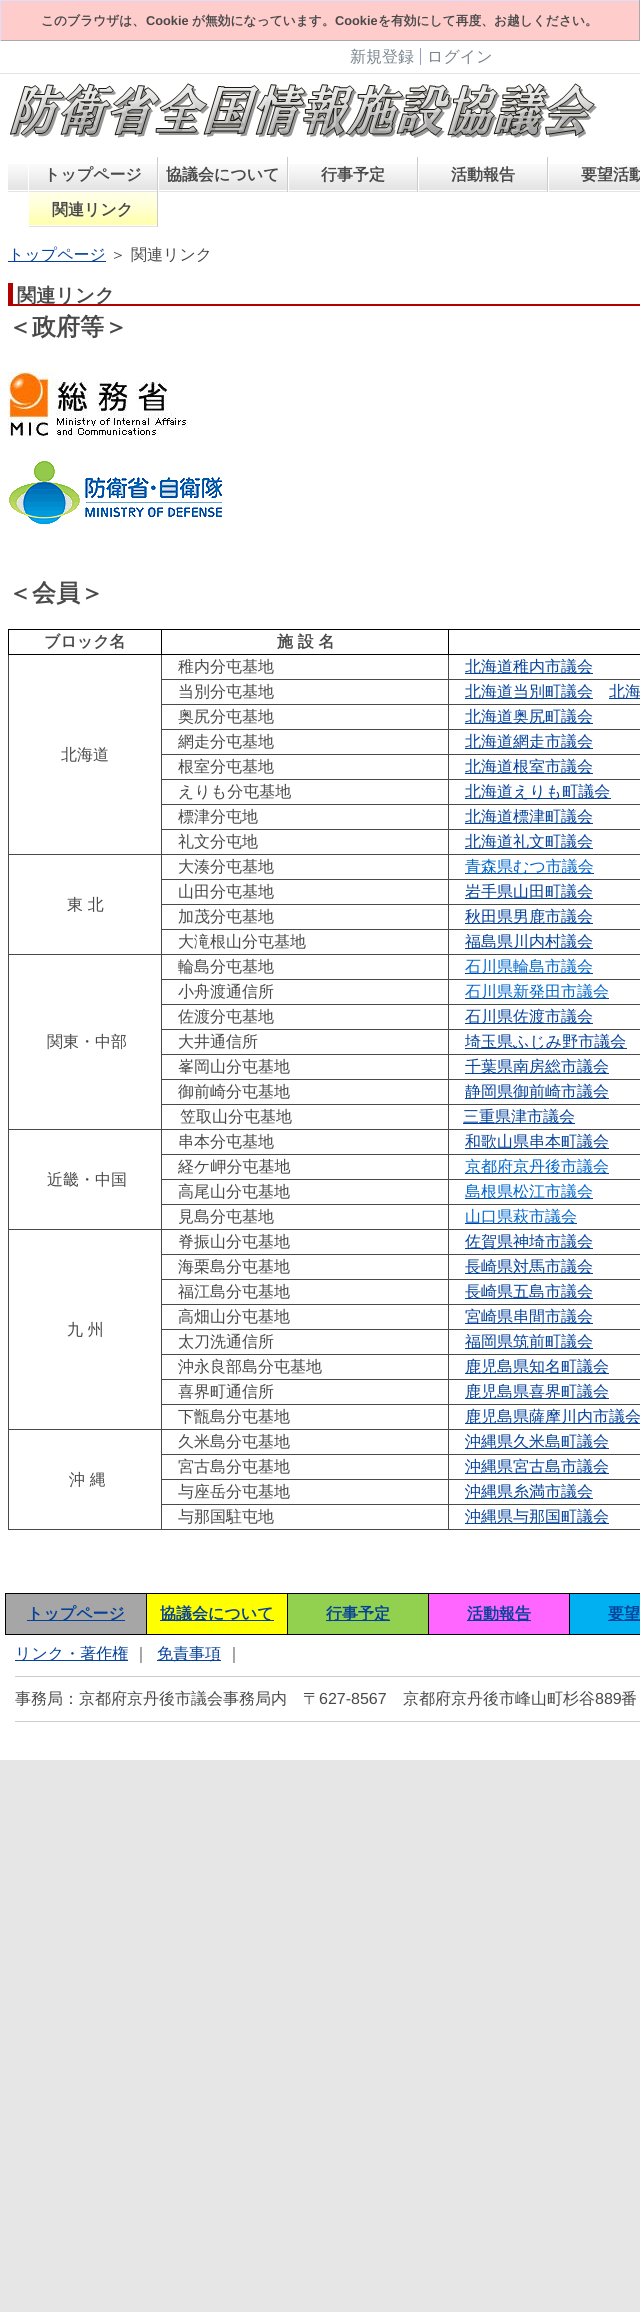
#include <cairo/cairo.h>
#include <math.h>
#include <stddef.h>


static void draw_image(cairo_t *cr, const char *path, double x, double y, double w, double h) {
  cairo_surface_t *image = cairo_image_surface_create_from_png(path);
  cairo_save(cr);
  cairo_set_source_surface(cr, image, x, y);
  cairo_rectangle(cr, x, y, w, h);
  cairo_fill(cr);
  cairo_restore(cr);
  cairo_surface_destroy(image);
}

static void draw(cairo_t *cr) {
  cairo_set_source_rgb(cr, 230 / 255.0, 230 / 255.0, 230 / 255.0);
  cairo_paint(cr);
  cairo_set_source_rgb(cr, 1, 204 / 255.0, 204 / 255.0);
  cairo_rectangle(cr, 1, 1, 638, 39);
  cairo_fill(cr);
  cairo_set_source_rgb(cr, 221 / 255.0, 221 / 255.0, 1);
  cairo_rectangle(cr, 0, 0, 640, 1);
  cairo_fill(cr);
  cairo_set_source_rgb(cr, 170 / 255.0, 170 / 255.0, 170 / 255.0);
  cairo_rectangle(cr, 639, 0, 1, 41);
  cairo_fill(cr);
  cairo_rectangle(cr, 0, 40, 640, 1);
  cairo_fill(cr);
  cairo_set_source_rgb(cr, 221 / 255.0, 221 / 255.0, 1);
  cairo_rectangle(cr, 0, 0, 1, 41);
  cairo_fill(cr);
  cairo_set_source_rgb(cr, 1, 1, 1);
  cairo_rectangle(cr, 0, 41, 640, 32);
  cairo_fill(cr);
  cairo_set_source_rgb(cr, 223 / 255.0, 228 / 255.0, 231 / 255.0);
  cairo_rectangle(cr, 0, 73, 640, 1);
  cairo_fill(cr);
  cairo_set_source_rgb(cr, 153 / 255.0, 153 / 255.0, 204 / 255.0);
  cairo_rectangle(cr, 420, 48, 1, 17);
  cairo_fill(cr);
  cairo_set_source_rgb(cr, 1, 1, 1);
  cairo_rectangle(cr, 0, 74, 640, 1686);
  cairo_fill(cr);
  draw_image(cr, "images/1.png", 10, 83, 587, 56);
  draw_image(cr, "images/2.png", 8, 164, 632, 28);
  cairo_set_source_rgb(cr, 204 / 255.0, 204 / 255.0, 204 / 255.0);
  cairo_rectangle(cr, 157, 157, 1, 70);
  cairo_fill(cr);
  cairo_set_source_rgb(cr, 1, 1, 1);
  cairo_rectangle(cr, 28, 157, 1, 35);
  cairo_fill(cr);
  cairo_set_source_rgb(cr, 204 / 255.0, 204 / 255.0, 204 / 255.0);
  cairo_rectangle(cr, 287, 157, 1, 35);
  cairo_fill(cr);
  cairo_set_source_rgb(cr, 1, 1, 1);
  cairo_rectangle(cr, 158, 157, 1, 35);
  cairo_fill(cr);
  cairo_set_source_rgb(cr, 204 / 255.0, 204 / 255.0, 204 / 255.0);
  cairo_rectangle(cr, 417, 157, 1, 35);
  cairo_fill(cr);
  cairo_set_source_rgb(cr, 1, 1, 1);
  cairo_rectangle(cr, 288, 157, 1, 35);
  cairo_fill(cr);
  cairo_set_source_rgb(cr, 204 / 255.0, 204 / 255.0, 204 / 255.0);
  cairo_rectangle(cr, 547, 157, 1, 35);
  cairo_fill(cr);
  cairo_set_source_rgb(cr, 1, 1, 1);
  cairo_rectangle(cr, 418, 157, 1, 35);
  cairo_fill(cr);
  cairo_rectangle(cr, 548, 157, 1, 35);
  cairo_fill(cr);
  draw_image(cr, "images/3.png", 29, 225, 128, 2);
  draw_image(cr, "images/4.png", 29, 192, 128, 33);
  cairo_set_source_rgb(cr, 4 / 255.0, 65 / 255.0, 154 / 255.0);
  cairo_rectangle(cr, 8, 261, 98, 1);
  cairo_fill(cr);
  cairo_set_source_rgb(cr, 178 / 255.0, 1 / 255.0, 0);
  cairo_rectangle(cr, 8, 283, 5, 23);
  cairo_fill(cr);
  cairo_rectangle(cr, 13, 304, 627, 2);
  cairo_fill(cr);
  draw_image(cr, "images/5.png", 8, 372, 180, 64);
  draw_image(cr, "images/6.png", 9, 461, 213, 63);
  cairo_set_source_rgb(cr, 0, 0, 0);
  cairo_rectangle(cr, 448, 629, 192, 1);
  cairo_fill(cr);
  cairo_set_source_rgb(cr, 73 / 255.0, 73 / 255.0, 73 / 255.0);
  cairo_rectangle(cr, 448, 1529, 192, 1);
  cairo_fill(cr);
  cairo_rectangle(cr, 448, 1504, 1, 26);
  cairo_fill(cr);
  cairo_rectangle(cr, 448, 1504, 192, 1);
  cairo_fill(cr);
  cairo_rectangle(cr, 448, 1479, 1, 26);
  cairo_fill(cr);
  cairo_rectangle(cr, 448, 1479, 192, 1);
  cairo_fill(cr);
  cairo_rectangle(cr, 448, 1454, 1, 26);
  cairo_fill(cr);
  cairo_rectangle(cr, 448, 1454, 192, 1);
  cairo_fill(cr);
  cairo_rectangle(cr, 448, 1429, 1, 26);
  cairo_fill(cr);
  cairo_rectangle(cr, 448, 1429, 192, 1);
  cairo_fill(cr);
  cairo_rectangle(cr, 448, 1404, 1, 26);
  cairo_fill(cr);
  cairo_rectangle(cr, 448, 1404, 192, 1);
  cairo_fill(cr);
  cairo_rectangle(cr, 448, 1379, 1, 26);
  cairo_fill(cr);
  cairo_rectangle(cr, 448, 1379, 192, 1);
  cairo_fill(cr);
  cairo_rectangle(cr, 448, 1354, 1, 26);
  cairo_fill(cr);
  cairo_rectangle(cr, 448, 1354, 192, 1);
  cairo_fill(cr);
  cairo_rectangle(cr, 448, 1329, 1, 26);
  cairo_fill(cr);
  cairo_rectangle(cr, 448, 1329, 192, 1);
  cairo_fill(cr);
  cairo_rectangle(cr, 448, 1304, 1, 26);
  cairo_fill(cr);
  cairo_rectangle(cr, 448, 1304, 192, 1);
  cairo_fill(cr);
  cairo_rectangle(cr, 448, 1279, 1, 26);
  cairo_fill(cr);
  cairo_rectangle(cr, 448, 1279, 192, 1);
  cairo_fill(cr);
  cairo_rectangle(cr, 448, 1254, 1, 26);
  cairo_fill(cr);
  cairo_rectangle(cr, 448, 1254, 192, 1);
  cairo_fill(cr);
  cairo_rectangle(cr, 448, 1229, 1, 26);
  cairo_fill(cr);
  cairo_rectangle(cr, 448, 1229, 192, 1);
  cairo_fill(cr);
  cairo_rectangle(cr, 448, 1204, 1, 26);
  cairo_fill(cr);
  cairo_rectangle(cr, 448, 1204, 192, 1);
  cairo_fill(cr);
  cairo_rectangle(cr, 448, 1179, 1, 26);
  cairo_fill(cr);
  cairo_rectangle(cr, 448, 1179, 192, 1);
  cairo_fill(cr);
  cairo_rectangle(cr, 448, 1154, 1, 26);
  cairo_fill(cr);
  cairo_rectangle(cr, 448, 1154, 192, 1);
  cairo_fill(cr);
  cairo_rectangle(cr, 448, 1129, 1, 26);
  cairo_fill(cr);
  cairo_rectangle(cr, 448, 1129, 192, 1);
  cairo_fill(cr);
  cairo_rectangle(cr, 448, 1104, 1, 26);
  cairo_fill(cr);
  cairo_rectangle(cr, 448, 1104, 192, 1);
  cairo_fill(cr);
  cairo_rectangle(cr, 448, 1079, 1, 26);
  cairo_fill(cr);
  cairo_rectangle(cr, 448, 1079, 192, 1);
  cairo_fill(cr);
  cairo_rectangle(cr, 448, 1054, 1, 26);
  cairo_fill(cr);
  cairo_rectangle(cr, 448, 1054, 192, 1);
  cairo_fill(cr);
  cairo_rectangle(cr, 448, 1029, 1, 26);
  cairo_fill(cr);
  cairo_rectangle(cr, 448, 1029, 192, 1);
  cairo_fill(cr);
  cairo_rectangle(cr, 448, 1004, 1, 26);
  cairo_fill(cr);
  cairo_rectangle(cr, 448, 1004, 192, 1);
  cairo_fill(cr);
  cairo_rectangle(cr, 448, 979, 1, 26);
  cairo_fill(cr);
  cairo_rectangle(cr, 448, 979, 192, 1);
  cairo_fill(cr);
  cairo_rectangle(cr, 448, 954, 1, 26);
  cairo_fill(cr);
  cairo_rectangle(cr, 448, 954, 192, 1);
  cairo_fill(cr);
  cairo_rectangle(cr, 448, 929, 1, 26);
  cairo_fill(cr);
  cairo_rectangle(cr, 448, 929, 192, 1);
  cairo_fill(cr);
  cairo_rectangle(cr, 448, 904, 1, 26);
  cairo_fill(cr);
  cairo_rectangle(cr, 448, 904, 192, 1);
  cairo_fill(cr);
  cairo_rectangle(cr, 448, 879, 1, 26);
  cairo_fill(cr);
  cairo_rectangle(cr, 448, 879, 192, 1);
  cairo_fill(cr);
  cairo_rectangle(cr, 448, 854, 1, 26);
  cairo_fill(cr);
  cairo_rectangle(cr, 448, 854, 192, 1);
  cairo_fill(cr);
  cairo_rectangle(cr, 448, 829, 1, 26);
  cairo_fill(cr);
  cairo_rectangle(cr, 448, 829, 192, 1);
  cairo_fill(cr);
  cairo_rectangle(cr, 448, 804, 1, 26);
  cairo_fill(cr);
  cairo_rectangle(cr, 448, 804, 192, 1);
  cairo_fill(cr);
  cairo_rectangle(cr, 448, 779, 1, 26);
  cairo_fill(cr);
  cairo_rectangle(cr, 448, 779, 192, 1);
  cairo_fill(cr);
  cairo_rectangle(cr, 448, 754, 1, 26);
  cairo_fill(cr);
  cairo_rectangle(cr, 448, 754, 192, 1);
  cairo_fill(cr);
  cairo_rectangle(cr, 448, 729, 1, 26);
  cairo_fill(cr);
  cairo_rectangle(cr, 448, 729, 192, 1);
  cairo_fill(cr);
  cairo_rectangle(cr, 448, 704, 1, 26);
  cairo_fill(cr);
  cairo_rectangle(cr, 448, 704, 192, 1);
  cairo_fill(cr);
  cairo_rectangle(cr, 448, 679, 1, 26);
  cairo_fill(cr);
  cairo_rectangle(cr, 448, 679, 192, 1);
  cairo_fill(cr);
  cairo_rectangle(cr, 448, 654, 1, 26);
  cairo_fill(cr);
  cairo_set_source_rgb(cr, 0, 0, 0);
  cairo_rectangle(cr, 448, 654, 192, 1);
  cairo_fill(cr);
  cairo_rectangle(cr, 448, 629, 1, 26);
  cairo_fill(cr);
  cairo_rectangle(cr, 161, 629, 288, 1);
  cairo_fill(cr);
  cairo_set_source_rgb(cr, 73 / 255.0, 73 / 255.0, 73 / 255.0);
  cairo_rectangle(cr, 161, 679, 288, 1);
  cairo_fill(cr);
  cairo_rectangle(cr, 161, 704, 288, 1);
  cairo_fill(cr);
  cairo_rectangle(cr, 161, 729, 288, 1);
  cairo_fill(cr);
  cairo_rectangle(cr, 161, 754, 288, 1);
  cairo_fill(cr);
  cairo_rectangle(cr, 161, 779, 288, 1);
  cairo_fill(cr);
  cairo_rectangle(cr, 161, 804, 288, 1);
  cairo_fill(cr);
  cairo_rectangle(cr, 161, 829, 288, 1);
  cairo_fill(cr);
  cairo_rectangle(cr, 161, 879, 288, 1);
  cairo_fill(cr);
  cairo_rectangle(cr, 161, 904, 288, 1);
  cairo_fill(cr);
  cairo_rectangle(cr, 161, 929, 288, 1);
  cairo_fill(cr);
  cairo_rectangle(cr, 161, 979, 288, 1);
  cairo_fill(cr);
  cairo_rectangle(cr, 161, 1004, 288, 1);
  cairo_fill(cr);
  cairo_rectangle(cr, 161, 1029, 288, 1);
  cairo_fill(cr);
  cairo_rectangle(cr, 161, 1054, 288, 1);
  cairo_fill(cr);
  cairo_rectangle(cr, 161, 1079, 288, 1);
  cairo_fill(cr);
  cairo_rectangle(cr, 161, 1104, 288, 1);
  cairo_fill(cr);
  cairo_rectangle(cr, 161, 1154, 288, 1);
  cairo_fill(cr);
  cairo_rectangle(cr, 161, 1179, 288, 1);
  cairo_fill(cr);
  cairo_rectangle(cr, 161, 1204, 288, 1);
  cairo_fill(cr);
  cairo_rectangle(cr, 161, 1254, 288, 1);
  cairo_fill(cr);
  cairo_rectangle(cr, 161, 1279, 288, 1);
  cairo_fill(cr);
  cairo_rectangle(cr, 161, 1304, 288, 1);
  cairo_fill(cr);
  cairo_rectangle(cr, 161, 1329, 288, 1);
  cairo_fill(cr);
  cairo_rectangle(cr, 161, 1354, 288, 1);
  cairo_fill(cr);
  cairo_rectangle(cr, 161, 1379, 288, 1);
  cairo_fill(cr);
  cairo_rectangle(cr, 161, 1404, 288, 1);
  cairo_fill(cr);
  cairo_rectangle(cr, 161, 1454, 288, 1);
  cairo_fill(cr);
  cairo_rectangle(cr, 161, 1479, 288, 1);
  cairo_fill(cr);
  cairo_rectangle(cr, 161, 1504, 288, 1);
  cairo_fill(cr);
  cairo_rectangle(cr, 161, 1529, 288, 1);
  cairo_fill(cr);
  cairo_rectangle(cr, 161, 1429, 1, 101);
  cairo_fill(cr);
  cairo_rectangle(cr, 161, 1429, 288, 1);
  cairo_fill(cr);
  cairo_rectangle(cr, 161, 1229, 1, 201);
  cairo_fill(cr);
  cairo_rectangle(cr, 161, 1229, 288, 1);
  cairo_fill(cr);
  cairo_rectangle(cr, 161, 1129, 1, 101);
  cairo_fill(cr);
  cairo_rectangle(cr, 161, 1129, 288, 1);
  cairo_fill(cr);
  cairo_rectangle(cr, 161, 954, 1, 176);
  cairo_fill(cr);
  cairo_rectangle(cr, 161, 954, 288, 1);
  cairo_fill(cr);
  cairo_rectangle(cr, 161, 854, 1, 101);
  cairo_fill(cr);
  cairo_rectangle(cr, 161, 854, 288, 1);
  cairo_fill(cr);
  cairo_rectangle(cr, 161, 654, 1, 201);
  cairo_fill(cr);
  cairo_set_source_rgb(cr, 0, 0, 0);
  cairo_rectangle(cr, 161, 654, 288, 1);
  cairo_fill(cr);
  cairo_rectangle(cr, 161, 629, 1, 26);
  cairo_fill(cr);
  cairo_rectangle(cr, 8, 629, 154, 1);
  cairo_fill(cr);
  cairo_set_source_rgb(cr, 73 / 255.0, 73 / 255.0, 73 / 255.0);
  cairo_rectangle(cr, 8, 1529, 154, 1);
  cairo_fill(cr);
  cairo_rectangle(cr, 8, 1429, 1, 101);
  cairo_fill(cr);
  cairo_rectangle(cr, 8, 1429, 154, 1);
  cairo_fill(cr);
  cairo_rectangle(cr, 8, 1229, 1, 201);
  cairo_fill(cr);
  cairo_rectangle(cr, 8, 1229, 154, 1);
  cairo_fill(cr);
  cairo_rectangle(cr, 8, 1129, 1, 101);
  cairo_fill(cr);
  cairo_rectangle(cr, 8, 1129, 154, 1);
  cairo_fill(cr);
  cairo_rectangle(cr, 8, 954, 1, 176);
  cairo_fill(cr);
  cairo_rectangle(cr, 8, 954, 154, 1);
  cairo_fill(cr);
  cairo_rectangle(cr, 8, 854, 1, 101);
  cairo_fill(cr);
  cairo_rectangle(cr, 8, 854, 154, 1);
  cairo_fill(cr);
  cairo_rectangle(cr, 8, 654, 1, 201);
  cairo_fill(cr);
  cairo_set_source_rgb(cr, 0, 0, 0);
  cairo_rectangle(cr, 8, 654, 154, 1);
  cairo_fill(cr);
  cairo_rectangle(cr, 8, 629, 1, 26);
  cairo_fill(cr);
  cairo_set_source_rgb(cr, 4 / 255.0, 65 / 255.0, 154 / 255.0);
  cairo_rectangle(cr, 465, 673, 128, 1);
  cairo_fill(cr);
  cairo_rectangle(cr, 465, 698, 128, 1);
  cairo_fill(cr);
  cairo_rectangle(cr, 609, 698, 31, 1);
  cairo_fill(cr);
  cairo_rectangle(cr, 465, 723, 128, 1);
  cairo_fill(cr);
  cairo_rectangle(cr, 465, 748, 128, 1);
  cairo_fill(cr);
  cairo_rectangle(cr, 465, 773, 128, 1);
  cairo_fill(cr);
  cairo_rectangle(cr, 465, 798, 146, 1);
  cairo_fill(cr);
  cairo_rectangle(cr, 465, 823, 128, 1);
  cairo_fill(cr);
  cairo_rectangle(cr, 465, 848, 128, 1);
  cairo_fill(cr);
  cairo_rectangle(cr, 465, 873, 129, 1);
  cairo_fill(cr);
  cairo_rectangle(cr, 465, 898, 128, 1);
  cairo_fill(cr);
  cairo_rectangle(cr, 465, 923, 128, 1);
  cairo_fill(cr);
  cairo_rectangle(cr, 465, 948, 128, 1);
  cairo_fill(cr);
  cairo_rectangle(cr, 465, 973, 128, 1);
  cairo_fill(cr);
  cairo_rectangle(cr, 465, 998, 144, 1);
  cairo_fill(cr);
  cairo_rectangle(cr, 465, 1023, 128, 1);
  cairo_fill(cr);
  cairo_rectangle(cr, 465, 1048, 162, 1);
  cairo_fill(cr);
  cairo_rectangle(cr, 465, 1073, 144, 1);
  cairo_fill(cr);
  cairo_rectangle(cr, 465, 1098, 144, 1);
  cairo_fill(cr);
  cairo_rectangle(cr, 463, 1123, 112, 1);
  cairo_fill(cr);
  cairo_rectangle(cr, 465, 1148, 144, 1);
  cairo_fill(cr);
  cairo_rectangle(cr, 465, 1173, 144, 1);
  cairo_fill(cr);
  cairo_rectangle(cr, 465, 1198, 128, 1);
  cairo_fill(cr);
  cairo_rectangle(cr, 465, 1223, 112, 1);
  cairo_fill(cr);
  cairo_rectangle(cr, 465, 1248, 128, 1);
  cairo_fill(cr);
  cairo_rectangle(cr, 465, 1273, 128, 1);
  cairo_fill(cr);
  cairo_rectangle(cr, 465, 1298, 128, 1);
  cairo_fill(cr);
  cairo_rectangle(cr, 465, 1323, 128, 1);
  cairo_fill(cr);
  cairo_rectangle(cr, 465, 1348, 128, 1);
  cairo_fill(cr);
  cairo_rectangle(cr, 465, 1373, 144, 1);
  cairo_fill(cr);
  cairo_rectangle(cr, 465, 1398, 144, 1);
  cairo_fill(cr);
  cairo_rectangle(cr, 465, 1423, 175, 1);
  cairo_fill(cr);
  cairo_rectangle(cr, 465, 1448, 144, 1);
  cairo_fill(cr);
  cairo_rectangle(cr, 465, 1473, 144, 1);
  cairo_fill(cr);
  cairo_rectangle(cr, 465, 1498, 128, 1);
  cairo_fill(cr);
  cairo_rectangle(cr, 465, 1523, 144, 1);
  cairo_fill(cr);
  cairo_set_source_rgb(cr, 0, 0, 0);
  cairo_rectangle(cr, 5, 1593, 635, 1);
  cairo_fill(cr);
  cairo_rectangle(cr, 5, 1634, 635, 1);
  cairo_fill(cr);
  cairo_rectangle(cr, 5, 1593, 1, 42);
  cairo_fill(cr);
  cairo_set_source_rgb(cr, 166 / 255.0, 166 / 255.0, 166 / 255.0);
  cairo_rectangle(cr, 6, 1594, 140, 40);
  cairo_fill(cr);
  cairo_set_source_rgb(cr, 4 / 255.0, 65 / 255.0, 154 / 255.0);
  cairo_rectangle(cr, 27, 1620, 98, 1);
  cairo_fill(cr);
  cairo_set_source_rgb(cr, 1, 1, 0);
  cairo_rectangle(cr, 147, 1594, 140, 40);
  cairo_fill(cr);
  cairo_set_source_rgb(cr, 0, 0, 0);
  cairo_rectangle(cr, 146, 1593, 1, 42);
  cairo_fill(cr);
  cairo_set_source_rgb(cr, 4 / 255.0, 65 / 255.0, 154 / 255.0);
  cairo_rectangle(cr, 160, 1620, 114, 1);
  cairo_fill(cr);
  cairo_set_source_rgb(cr, 146 / 255.0, 208 / 255.0, 80 / 255.0);
  cairo_rectangle(cr, 288, 1594, 140, 40);
  cairo_fill(cr);
  cairo_set_source_rgb(cr, 0, 0, 0);
  cairo_rectangle(cr, 287, 1593, 1, 42);
  cairo_fill(cr);
  cairo_set_source_rgb(cr, 4 / 255.0, 65 / 255.0, 154 / 255.0);
  cairo_rectangle(cr, 326, 1620, 64, 1);
  cairo_fill(cr);
  cairo_set_source_rgb(cr, 1, 102 / 255.0, 1);
  cairo_rectangle(cr, 429, 1594, 140, 40);
  cairo_fill(cr);
  cairo_set_source_rgb(cr, 0, 0, 0);
  cairo_rectangle(cr, 428, 1593, 1, 42);
  cairo_fill(cr);
  cairo_set_source_rgb(cr, 4 / 255.0, 65 / 255.0, 154 / 255.0);
  cairo_rectangle(cr, 467, 1620, 64, 1);
  cairo_fill(cr);
  cairo_set_source_rgb(cr, 0, 176 / 255.0, 240 / 255.0);
  cairo_rectangle(cr, 570, 1594, 70, 40);
  cairo_fill(cr);
  cairo_set_source_rgb(cr, 0, 0, 0);
  cairo_rectangle(cr, 569, 1593, 1, 42);
  cairo_fill(cr);
  cairo_set_source_rgb(cr, 4 / 255.0, 65 / 255.0, 154 / 255.0);
  cairo_rectangle(cr, 608, 1620, 32, 1);
  cairo_fill(cr);
  cairo_rectangle(cr, 15, 1660, 113, 1);
  cairo_fill(cr);
  cairo_rectangle(cr, 157, 1660, 64, 1);
  cairo_fill(cr);
  cairo_set_source_rgb(cr, 204 / 255.0, 204 / 255.0, 204 / 255.0);
  cairo_rectangle(cr, 15, 1676, 625, 1);
  cairo_fill(cr);
  cairo_rectangle(cr, 15, 1721, 625, 1);
  cairo_fill(cr);
  cairo_select_font_face(cr, "WenQuanYi Zen Hei", CAIRO_FONT_SLANT_NORMAL, CAIRO_FONT_WEIGHT_BOLD);
  cairo_set_font_size(cr, 12.75);
  cairo_set_source_rgb(cr, 73 / 255.0, 73 / 255.0, 73 / 255.0);
  cairo_move_to(cr, 41, 25);
  cairo_show_text(cr, "このブラウザは、");
  cairo_select_font_face(cr, "Liberation Sans", CAIRO_FONT_SLANT_NORMAL, CAIRO_FONT_WEIGHT_BOLD);
  cairo_move_to(cr, 146, 25);
  cairo_show_text(cr, "Cookie");
  cairo_select_font_face(cr, "WenQuanYi Zen Hei", CAIRO_FONT_SLANT_NORMAL, CAIRO_FONT_WEIGHT_BOLD);
  cairo_move_to(cr, 192, 25);
  cairo_show_text(cr, "が無効になっています。");
  cairo_select_font_face(cr, "Liberation Sans", CAIRO_FONT_SLANT_NORMAL, CAIRO_FONT_WEIGHT_BOLD);
  cairo_move_to(cr, 335, 25);
  cairo_show_text(cr, "Cookie");
  cairo_select_font_face(cr, "WenQuanYi Zen Hei", CAIRO_FONT_SLANT_NORMAL, CAIRO_FONT_WEIGHT_BOLD);
  cairo_move_to(cr, 378, 25);
  cairo_show_text(cr, "を有効にして再度、お越しください。");
  cairo_select_font_face(cr, "WenQuanYi Zen Hei Medium", CAIRO_FONT_SLANT_NORMAL, CAIRO_FONT_WEIGHT_NORMAL);
  cairo_set_font_size(cr, 16);
  cairo_set_source_rgb(cr, 122 / 255.0, 133 / 255.0, 143 / 255.0);
  cairo_move_to(cr, 350, 62);
  cairo_show_text(cr, "新規登録");
  cairo_move_to(cr, 427, 62);
  cairo_show_text(cr, "ログイン");
  cairo_select_font_face(cr, "WenQuanYi Zen Hei", CAIRO_FONT_SLANT_NORMAL, CAIRO_FONT_WEIGHT_BOLD);
  cairo_set_source_rgb(cr, 73 / 255.0, 73 / 255.0, 73 / 255.0);
  cairo_move_to(cr, 44, 180);
  cairo_show_text(cr, "トップページ");
  cairo_move_to(cr, 166, 180);
  cairo_show_text(cr, "協議会について");
  cairo_move_to(cr, 321, 180);
  cairo_show_text(cr, "行事予定");
  cairo_move_to(cr, 451, 180);
  cairo_show_text(cr, "活動報告");
  cairo_move_to(cr, 581, 180);
  cairo_show_text(cr, "要望活動");
  cairo_move_to(cr, 52, 215);
  cairo_show_text(cr, "関連リンク");
  cairo_select_font_face(cr, "WenQuanYi Zen Hei Medium", CAIRO_FONT_SLANT_NORMAL, CAIRO_FONT_WEIGHT_NORMAL);
  cairo_set_source_rgb(cr, 4 / 255.0, 65 / 255.0, 154 / 255.0);
  cairo_move_to(cr, 8, 260);
  cairo_show_text(cr, "トップページ");
  cairo_set_source_rgb(cr, 73 / 255.0, 73 / 255.0, 73 / 255.0);
  cairo_move_to(cr, 110, 260);
  cairo_show_text(cr, "＞");
  cairo_move_to(cr, 131, 260);
  cairo_show_text(cr, "関連リンク");
  cairo_select_font_face(cr, "WenQuanYi Zen Hei", CAIRO_FONT_SLANT_NORMAL, CAIRO_FONT_WEIGHT_BOLD);
  cairo_set_font_size(cr, 19.25);
  cairo_move_to(cr, 17, 302);
  cairo_show_text(cr, "関連リンク");
  cairo_set_font_size(cr, 24);
  cairo_move_to(cr, 8, 335);
  cairo_show_text(cr, "＜政府等＞");
  cairo_move_to(cr, 8, 601);
  cairo_show_text(cr, "＜会員＞");
  cairo_set_font_size(cr, 16);
  cairo_move_to(cr, 44, 647);
  cairo_show_text(cr, "ブロック名");
  cairo_move_to(cr, 277, 647);
  cairo_show_text(cr, "施 設 名");
  cairo_select_font_face(cr, "WenQuanYi Zen Hei Medium", CAIRO_FONT_SLANT_NORMAL, CAIRO_FONT_WEIGHT_NORMAL);
  cairo_move_to(cr, 178, 672);
  cairo_show_text(cr, "稚内分屯基地");
  cairo_set_source_rgb(cr, 4 / 255.0, 65 / 255.0, 154 / 255.0);
  cairo_move_to(cr, 465, 672);
  cairo_show_text(cr, "北海道稚内市議会");
  cairo_set_source_rgb(cr, 73 / 255.0, 73 / 255.0, 73 / 255.0);
  cairo_move_to(cr, 61, 760);
  cairo_show_text(cr, "北海道");
  cairo_move_to(cr, 178, 697);
  cairo_show_text(cr, "当別分屯基地");
  cairo_set_source_rgb(cr, 4 / 255.0, 65 / 255.0, 154 / 255.0);
  cairo_move_to(cr, 465, 697);
  cairo_show_text(cr, "北海道当別町議会");
  cairo_move_to(cr, 609, 697);
  cairo_show_text(cr, "北海");
  cairo_set_source_rgb(cr, 73 / 255.0, 73 / 255.0, 73 / 255.0);
  cairo_move_to(cr, 178, 722);
  cairo_show_text(cr, "奥尻分屯基地");
  cairo_set_source_rgb(cr, 4 / 255.0, 65 / 255.0, 154 / 255.0);
  cairo_move_to(cr, 465, 722);
  cairo_show_text(cr, "北海道奥尻町議会");
  cairo_set_source_rgb(cr, 73 / 255.0, 73 / 255.0, 73 / 255.0);
  cairo_move_to(cr, 178, 747);
  cairo_show_text(cr, "網走分屯基地");
  cairo_set_source_rgb(cr, 4 / 255.0, 65 / 255.0, 154 / 255.0);
  cairo_move_to(cr, 465, 747);
  cairo_show_text(cr, "北海道網走市議会");
  cairo_set_source_rgb(cr, 73 / 255.0, 73 / 255.0, 73 / 255.0);
  cairo_move_to(cr, 178, 772);
  cairo_show_text(cr, "根室分屯基地");
  cairo_set_source_rgb(cr, 4 / 255.0, 65 / 255.0, 154 / 255.0);
  cairo_move_to(cr, 465, 772);
  cairo_show_text(cr, "北海道根室市議会");
  cairo_set_source_rgb(cr, 73 / 255.0, 73 / 255.0, 73 / 255.0);
  cairo_move_to(cr, 178, 797);
  cairo_show_text(cr, "えりも分屯基地");
  cairo_set_source_rgb(cr, 4 / 255.0, 65 / 255.0, 154 / 255.0);
  cairo_move_to(cr, 465, 797);
  cairo_show_text(cr, "北海道えりも町議会");
  cairo_set_source_rgb(cr, 73 / 255.0, 73 / 255.0, 73 / 255.0);
  cairo_move_to(cr, 178, 822);
  cairo_show_text(cr, "標津分屯地");
  cairo_set_source_rgb(cr, 4 / 255.0, 65 / 255.0, 154 / 255.0);
  cairo_move_to(cr, 465, 822);
  cairo_show_text(cr, "北海道標津町議会");
  cairo_set_source_rgb(cr, 73 / 255.0, 73 / 255.0, 73 / 255.0);
  cairo_move_to(cr, 178, 847);
  cairo_show_text(cr, "礼文分屯地");
  cairo_set_source_rgb(cr, 4 / 255.0, 65 / 255.0, 154 / 255.0);
  cairo_move_to(cr, 465, 847);
  cairo_show_text(cr, "北海道礼文町議会");
  cairo_set_source_rgb(cr, 73 / 255.0, 73 / 255.0, 73 / 255.0);
  cairo_move_to(cr, 178, 872);
  cairo_show_text(cr, "大湊分屯基地");
  cairo_set_source_rgb(cr, 0, 102 / 255.0, 204 / 255.0);
  cairo_move_to(cr, 465, 872);
  cairo_show_text(cr, "青森県むつ市議会");
  cairo_set_source_rgb(cr, 73 / 255.0, 73 / 255.0, 73 / 255.0);
  cairo_move_to(cr, 67, 910);
  cairo_show_text(cr, "東 北");
  cairo_move_to(cr, 178, 897);
  cairo_show_text(cr, "山田分屯基地");
  cairo_set_source_rgb(cr, 4 / 255.0, 65 / 255.0, 154 / 255.0);
  cairo_move_to(cr, 465, 897);
  cairo_show_text(cr, "岩手県山田町議会");
  cairo_set_source_rgb(cr, 73 / 255.0, 73 / 255.0, 73 / 255.0);
  cairo_move_to(cr, 178, 922);
  cairo_show_text(cr, "加茂分屯基地");
  cairo_set_source_rgb(cr, 4 / 255.0, 65 / 255.0, 154 / 255.0);
  cairo_move_to(cr, 465, 922);
  cairo_show_text(cr, "秋田県男鹿市議会");
  cairo_set_source_rgb(cr, 73 / 255.0, 73 / 255.0, 73 / 255.0);
  cairo_move_to(cr, 178, 947);
  cairo_show_text(cr, "大滝根山分屯基地");
  cairo_set_source_rgb(cr, 4 / 255.0, 65 / 255.0, 154 / 255.0);
  cairo_move_to(cr, 465, 947);
  cairo_show_text(cr, "福島県川内村議会");
  cairo_set_source_rgb(cr, 73 / 255.0, 73 / 255.0, 73 / 255.0);
  cairo_move_to(cr, 178, 972);
  cairo_show_text(cr, "輪島分屯基地");
  cairo_set_source_rgb(cr, 0, 102 / 255.0, 204 / 255.0);
  cairo_move_to(cr, 465, 972);
  cairo_show_text(cr, "石川県輪島市議会");
  cairo_set_source_rgb(cr, 73 / 255.0, 73 / 255.0, 73 / 255.0);
  cairo_move_to(cr, 47, 1047);
  cairo_show_text(cr, "関東・中部");
  cairo_move_to(cr, 178, 997);
  cairo_show_text(cr, "小舟渡通信所");
  cairo_set_source_rgb(cr, 0, 102 / 255.0, 204 / 255.0);
  cairo_move_to(cr, 465, 997);
  cairo_show_text(cr, "石川県新発田市議会");
  cairo_set_source_rgb(cr, 73 / 255.0, 73 / 255.0, 73 / 255.0);
  cairo_move_to(cr, 178, 1022);
  cairo_show_text(cr, "佐渡分屯基地");
  cairo_set_source_rgb(cr, 4 / 255.0, 65 / 255.0, 154 / 255.0);
  cairo_move_to(cr, 465, 1022);
  cairo_show_text(cr, "石川県佐渡市議会");
  cairo_set_source_rgb(cr, 73 / 255.0, 73 / 255.0, 73 / 255.0);
  cairo_move_to(cr, 178, 1047);
  cairo_show_text(cr, "大井通信所");
  cairo_set_source_rgb(cr, 4 / 255.0, 65 / 255.0, 154 / 255.0);
  cairo_move_to(cr, 465, 1047);
  cairo_show_text(cr, "埼玉県ふじみ野市議会");
  cairo_set_source_rgb(cr, 73 / 255.0, 73 / 255.0, 73 / 255.0);
  cairo_move_to(cr, 178, 1072);
  cairo_show_text(cr, "峯岡山分屯基地");
  cairo_set_source_rgb(cr, 4 / 255.0, 65 / 255.0, 154 / 255.0);
  cairo_move_to(cr, 465, 1072);
  cairo_show_text(cr, "千葉県南房総市議会");
  cairo_set_source_rgb(cr, 73 / 255.0, 73 / 255.0, 73 / 255.0);
  cairo_move_to(cr, 178, 1097);
  cairo_show_text(cr, "御前崎分屯基地");
  cairo_set_source_rgb(cr, 4 / 255.0, 65 / 255.0, 154 / 255.0);
  cairo_move_to(cr, 465, 1097);
  cairo_show_text(cr, "静岡県御前崎市議会");
  cairo_set_source_rgb(cr, 73 / 255.0, 73 / 255.0, 73 / 255.0);
  cairo_move_to(cr, 180, 1122);
  cairo_show_text(cr, "笠取山分屯基地");
  cairo_set_source_rgb(cr, 4 / 255.0, 65 / 255.0, 154 / 255.0);
  cairo_move_to(cr, 463, 1122);
  cairo_show_text(cr, "三重県津市議会");
  cairo_set_source_rgb(cr, 73 / 255.0, 73 / 255.0, 73 / 255.0);
  cairo_move_to(cr, 178, 1147);
  cairo_show_text(cr, "串本分屯基地");
  cairo_set_source_rgb(cr, 4 / 255.0, 65 / 255.0, 154 / 255.0);
  cairo_move_to(cr, 465, 1147);
  cairo_show_text(cr, "和歌山県串本町議会");
  cairo_set_source_rgb(cr, 73 / 255.0, 73 / 255.0, 73 / 255.0);
  cairo_move_to(cr, 47, 1185);
  cairo_show_text(cr, "近畿・中国");
  cairo_move_to(cr, 178, 1172);
  cairo_show_text(cr, "経ケ岬分屯基地");
  cairo_set_source_rgb(cr, 0, 102 / 255.0, 204 / 255.0);
  cairo_move_to(cr, 465, 1172);
  cairo_show_text(cr, "京都府京丹後市議会");
  cairo_set_source_rgb(cr, 73 / 255.0, 73 / 255.0, 73 / 255.0);
  cairo_move_to(cr, 178, 1197);
  cairo_show_text(cr, "高尾山分屯基地");
  cairo_set_source_rgb(cr, 0, 102 / 255.0, 204 / 255.0);
  cairo_move_to(cr, 465, 1197);
  cairo_show_text(cr, "島根県松江市議会");
  cairo_set_source_rgb(cr, 73 / 255.0, 73 / 255.0, 73 / 255.0);
  cairo_move_to(cr, 178, 1222);
  cairo_show_text(cr, "見島分屯基地");
  cairo_set_source_rgb(cr, 0, 102 / 255.0, 204 / 255.0);
  cairo_move_to(cr, 465, 1222);
  cairo_show_text(cr, "山口県萩市議会");
  cairo_set_source_rgb(cr, 73 / 255.0, 73 / 255.0, 73 / 255.0);
  cairo_move_to(cr, 178, 1247);
  cairo_show_text(cr, "脊振山分屯基地");
  cairo_set_source_rgb(cr, 4 / 255.0, 65 / 255.0, 154 / 255.0);
  cairo_move_to(cr, 465, 1247);
  cairo_show_text(cr, "佐賀県神埼市議会");
  cairo_set_source_rgb(cr, 73 / 255.0, 73 / 255.0, 73 / 255.0);
  cairo_move_to(cr, 67, 1335);
  cairo_show_text(cr, "九 州");
  cairo_move_to(cr, 178, 1272);
  cairo_show_text(cr, "海栗島分屯基地");
  cairo_set_source_rgb(cr, 4 / 255.0, 65 / 255.0, 154 / 255.0);
  cairo_move_to(cr, 465, 1272);
  cairo_show_text(cr, "長崎県対馬市議会");
  cairo_set_source_rgb(cr, 73 / 255.0, 73 / 255.0, 73 / 255.0);
  cairo_move_to(cr, 178, 1297);
  cairo_show_text(cr, "福江島分屯基地");
  cairo_set_source_rgb(cr, 4 / 255.0, 65 / 255.0, 154 / 255.0);
  cairo_move_to(cr, 465, 1297);
  cairo_show_text(cr, "長崎県五島市議会");
  cairo_set_source_rgb(cr, 73 / 255.0, 73 / 255.0, 73 / 255.0);
  cairo_move_to(cr, 178, 1322);
  cairo_show_text(cr, "高畑山分屯基地");
  cairo_set_source_rgb(cr, 4 / 255.0, 65 / 255.0, 154 / 255.0);
  cairo_move_to(cr, 465, 1322);
  cairo_show_text(cr, "宮崎県串間市議会");
  cairo_set_source_rgb(cr, 73 / 255.0, 73 / 255.0, 73 / 255.0);
  cairo_move_to(cr, 178, 1347);
  cairo_show_text(cr, "太刀洗通信所");
  cairo_set_source_rgb(cr, 4 / 255.0, 65 / 255.0, 154 / 255.0);
  cairo_move_to(cr, 465, 1347);
  cairo_show_text(cr, "福岡県筑前町議会");
  cairo_set_source_rgb(cr, 73 / 255.0, 73 / 255.0, 73 / 255.0);
  cairo_move_to(cr, 178, 1372);
  cairo_show_text(cr, "沖永良部島分屯基地");
  cairo_set_source_rgb(cr, 4 / 255.0, 65 / 255.0, 154 / 255.0);
  cairo_move_to(cr, 465, 1372);
  cairo_show_text(cr, "鹿児島県知名町議会");
  cairo_set_source_rgb(cr, 73 / 255.0, 73 / 255.0, 73 / 255.0);
  cairo_move_to(cr, 178, 1397);
  cairo_show_text(cr, "喜界町通信所");
  cairo_set_source_rgb(cr, 4 / 255.0, 65 / 255.0, 154 / 255.0);
  cairo_move_to(cr, 465, 1397);
  cairo_show_text(cr, "鹿児島県喜界町議会");
  cairo_set_source_rgb(cr, 73 / 255.0, 73 / 255.0, 73 / 255.0);
  cairo_move_to(cr, 178, 1422);
  cairo_show_text(cr, "下甑島分屯基地");
  cairo_set_source_rgb(cr, 4 / 255.0, 65 / 255.0, 154 / 255.0);
  cairo_move_to(cr, 465, 1422);
  cairo_show_text(cr, "鹿児島県薩摩川内市議会");
  cairo_set_source_rgb(cr, 73 / 255.0, 73 / 255.0, 73 / 255.0);
  cairo_move_to(cr, 178, 1447);
  cairo_show_text(cr, "久米島分屯基地");
  cairo_set_source_rgb(cr, 4 / 255.0, 65 / 255.0, 154 / 255.0);
  cairo_move_to(cr, 465, 1447);
  cairo_show_text(cr, "沖縄県久米島町議会");
  cairo_set_source_rgb(cr, 73 / 255.0, 73 / 255.0, 73 / 255.0);
  cairo_move_to(cr, 69, 1485);
  cairo_show_text(cr, "沖 縄");
  cairo_move_to(cr, 178, 1472);
  cairo_show_text(cr, "宮古島分屯基地");
  cairo_set_source_rgb(cr, 4 / 255.0, 65 / 255.0, 154 / 255.0);
  cairo_move_to(cr, 465, 1472);
  cairo_show_text(cr, "沖縄県宮古島市議会");
  cairo_set_source_rgb(cr, 73 / 255.0, 73 / 255.0, 73 / 255.0);
  cairo_move_to(cr, 178, 1497);
  cairo_show_text(cr, "与座岳分屯基地");
  cairo_set_source_rgb(cr, 4 / 255.0, 65 / 255.0, 154 / 255.0);
  cairo_move_to(cr, 465, 1497);
  cairo_show_text(cr, "沖縄県糸満市議会");
  cairo_set_source_rgb(cr, 73 / 255.0, 73 / 255.0, 73 / 255.0);
  cairo_move_to(cr, 178, 1522);
  cairo_show_text(cr, "与那国駐屯地");
  cairo_set_source_rgb(cr, 4 / 255.0, 65 / 255.0, 154 / 255.0);
  cairo_move_to(cr, 465, 1522);
  cairo_show_text(cr, "沖縄県与那国町議会");
  cairo_select_font_face(cr, "WenQuanYi Zen Hei", CAIRO_FONT_SLANT_NORMAL, CAIRO_FONT_WEIGHT_BOLD);
  cairo_move_to(cr, 27, 1619);
  cairo_show_text(cr, "トップページ");
  cairo_move_to(cr, 160, 1619);
  cairo_show_text(cr, "協議会について");
  cairo_move_to(cr, 326, 1619);
  cairo_show_text(cr, "行事予定");
  cairo_move_to(cr, 467, 1619);
  cairo_show_text(cr, "活動報告");
  cairo_move_to(cr, 608, 1619);
  cairo_show_text(cr, "要望");
  cairo_select_font_face(cr, "WenQuanYi Zen Hei Medium", CAIRO_FONT_SLANT_NORMAL, CAIRO_FONT_WEIGHT_NORMAL);
  cairo_move_to(cr, 15, 1659);
  cairo_show_text(cr, "リンク・著作権");
  cairo_set_source_rgb(cr, 73 / 255.0, 73 / 255.0, 73 / 255.0);
  cairo_move_to(cr, 133, 1659);
  cairo_show_text(cr, "｜");
  cairo_set_source_rgb(cr, 4 / 255.0, 65 / 255.0, 154 / 255.0);
  cairo_move_to(cr, 157, 1659);
  cairo_show_text(cr, "免責事項");
  cairo_set_source_rgb(cr, 73 / 255.0, 73 / 255.0, 73 / 255.0);
  cairo_move_to(cr, 226, 1659);
  cairo_show_text(cr, "｜");
  cairo_move_to(cr, 15, 1704);
  cairo_show_text(cr, "事務局：京都府京丹後市議会事務局内　〒");
  cairo_select_font_face(cr, "Liberation Sans", CAIRO_FONT_SLANT_NORMAL, CAIRO_FONT_WEIGHT_NORMAL);
  cairo_move_to(cr, 319, 1704);
  cairo_show_text(cr, "627‐8567");
  cairo_select_font_face(cr, "WenQuanYi Zen Hei Medium", CAIRO_FONT_SLANT_NORMAL, CAIRO_FONT_WEIGHT_NORMAL);
  cairo_move_to(cr, 403, 1704);
  cairo_show_text(cr, "京都府京丹後市峰山町杉谷");
  cairo_select_font_face(cr, "Liberation Sans", CAIRO_FONT_SLANT_NORMAL, CAIRO_FONT_WEIGHT_NORMAL);
  cairo_move_to(cr, 595, 1704);
  cairo_show_text(cr, "889");
  cairo_select_font_face(cr, "WenQuanYi Zen Hei Medium", CAIRO_FONT_SLANT_NORMAL, CAIRO_FONT_WEIGHT_NORMAL);
  cairo_move_to(cr, 621, 1704);
  cairo_show_text(cr, "番");
}

int main(void) {
  cairo_surface_t *surface = cairo_image_surface_create(CAIRO_FORMAT_RGB24, 640, 2312);
  cairo_t *cr = cairo_create(surface);
  cairo_font_options_t *options = cairo_font_options_create();
  cairo_font_options_set_hint_metrics(options, CAIRO_HINT_METRICS_OFF);
  cairo_font_options_set_hint_style(options, CAIRO_HINT_STYLE_NONE);
  cairo_set_font_options(cr, options);
  cairo_set_miter_limit(cr, 4);
  draw(cr);
  cairo_surface_write_to_png(surface, "out.png");
  cairo_font_options_destroy(options);
  cairo_destroy(cr);
  cairo_surface_destroy(surface);
  return 0;
}
